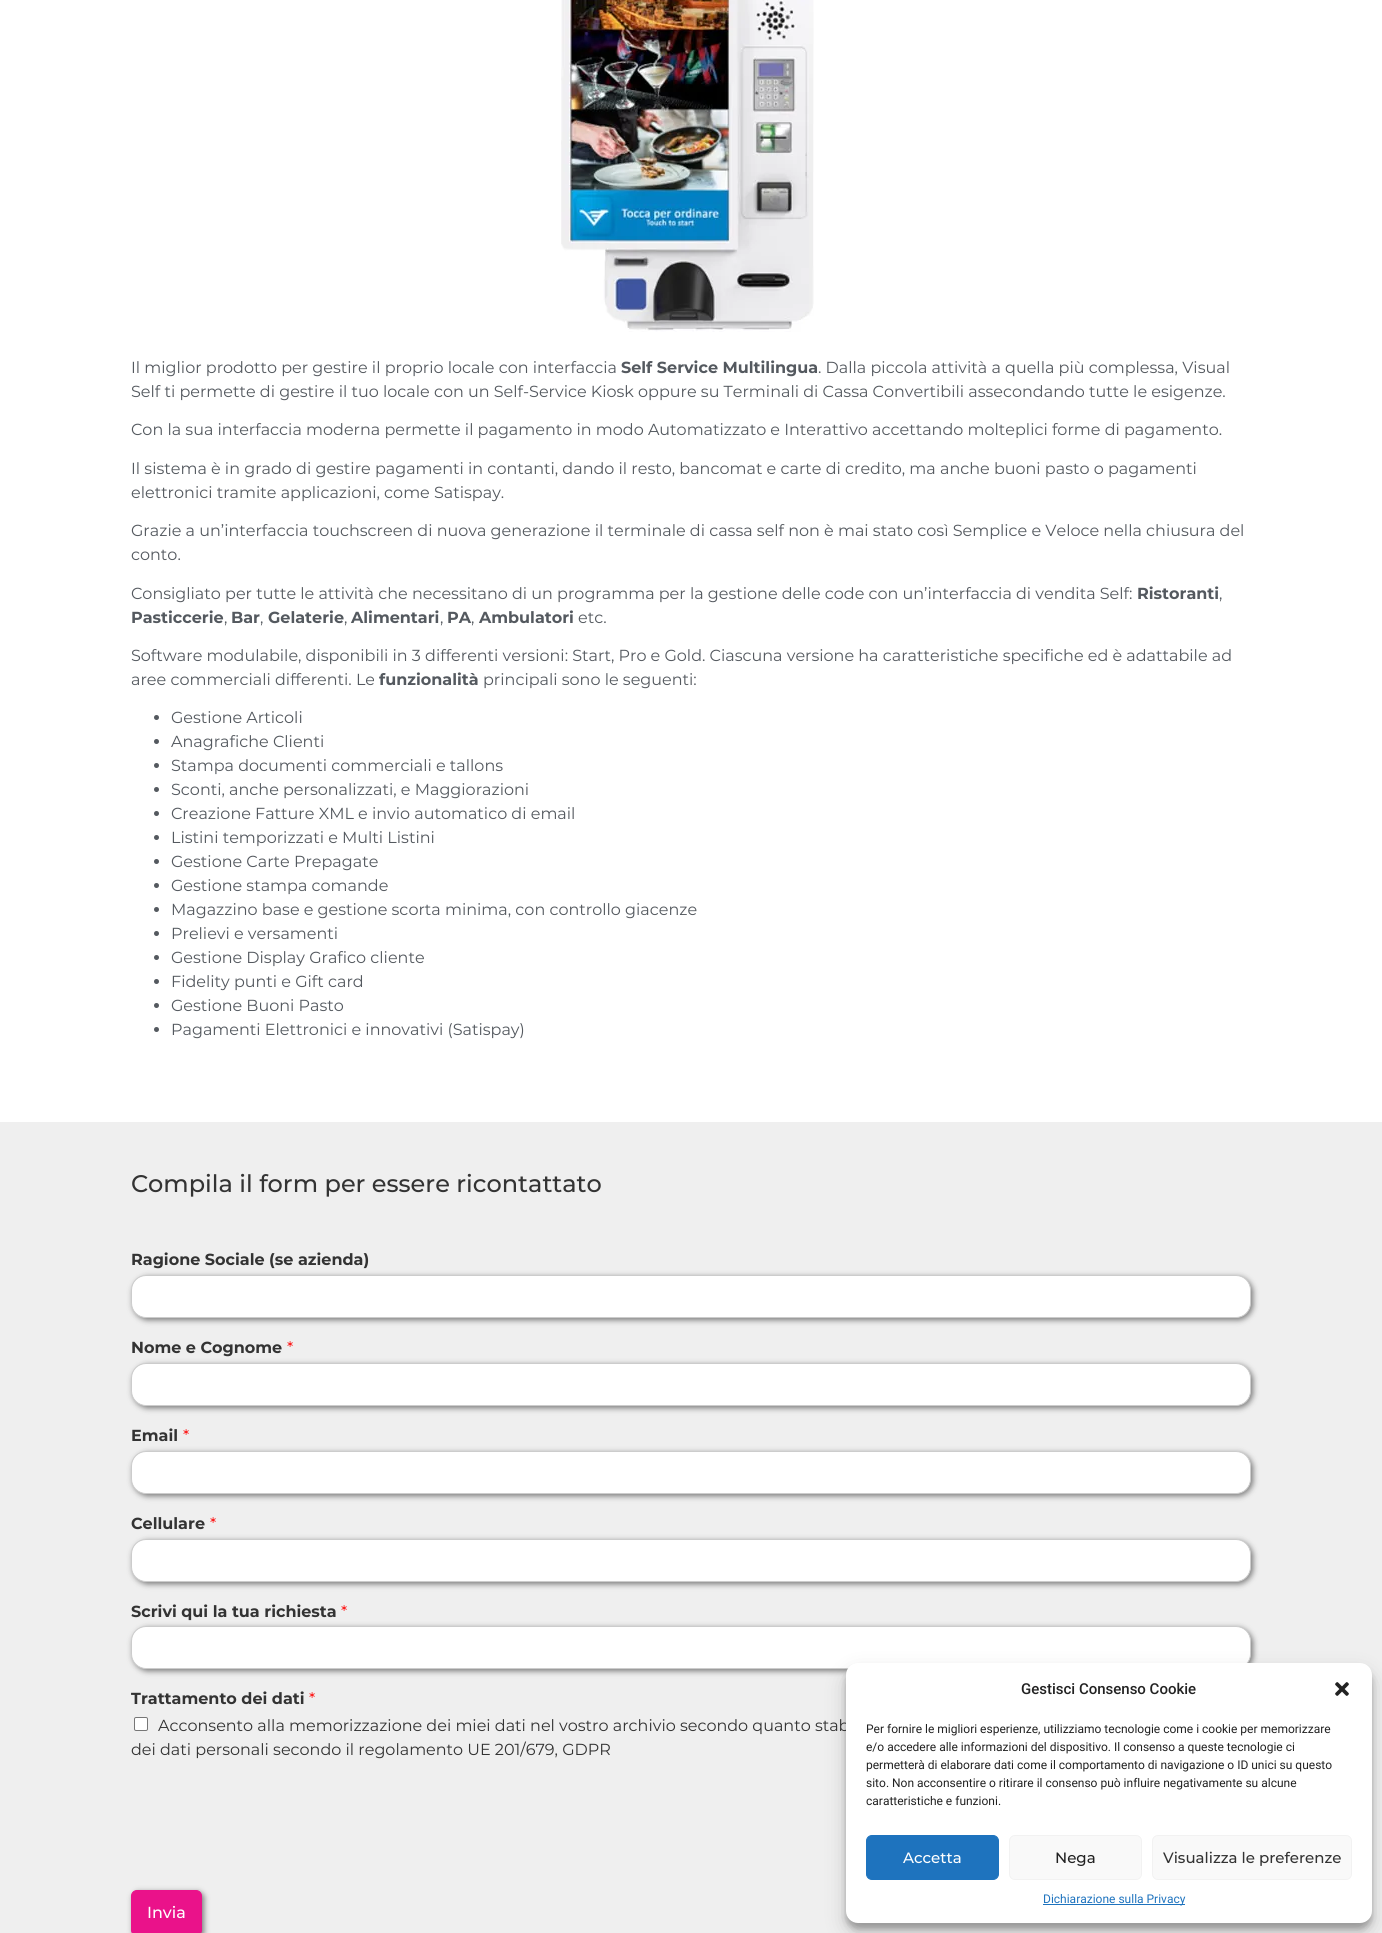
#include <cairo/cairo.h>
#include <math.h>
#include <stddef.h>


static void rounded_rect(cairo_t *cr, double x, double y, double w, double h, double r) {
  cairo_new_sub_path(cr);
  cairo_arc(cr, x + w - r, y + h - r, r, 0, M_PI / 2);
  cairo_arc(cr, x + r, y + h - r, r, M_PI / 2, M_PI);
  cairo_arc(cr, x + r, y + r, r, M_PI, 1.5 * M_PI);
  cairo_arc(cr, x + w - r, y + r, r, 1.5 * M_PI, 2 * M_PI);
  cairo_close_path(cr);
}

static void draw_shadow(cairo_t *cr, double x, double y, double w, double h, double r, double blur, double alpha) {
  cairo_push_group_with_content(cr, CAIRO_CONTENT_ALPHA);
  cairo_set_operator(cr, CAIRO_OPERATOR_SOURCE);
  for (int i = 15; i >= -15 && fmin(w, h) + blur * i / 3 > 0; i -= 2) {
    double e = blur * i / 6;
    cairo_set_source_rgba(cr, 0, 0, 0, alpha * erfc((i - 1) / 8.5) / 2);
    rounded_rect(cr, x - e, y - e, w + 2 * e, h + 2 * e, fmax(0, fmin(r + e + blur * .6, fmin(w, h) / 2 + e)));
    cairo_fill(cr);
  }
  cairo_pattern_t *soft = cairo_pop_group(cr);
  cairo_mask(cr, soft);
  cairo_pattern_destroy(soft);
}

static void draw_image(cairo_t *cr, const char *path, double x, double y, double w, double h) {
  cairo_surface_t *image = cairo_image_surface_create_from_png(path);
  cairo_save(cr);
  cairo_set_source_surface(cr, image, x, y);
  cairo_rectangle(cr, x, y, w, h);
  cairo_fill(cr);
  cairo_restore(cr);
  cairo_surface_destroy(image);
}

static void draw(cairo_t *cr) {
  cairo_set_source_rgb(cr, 1, 1, 1);
  cairo_paint(cr);
  draw_image(cr, "images/1.png", 561, 0, 253, 332);
  cairo_set_source_rgb(cr, 84 / 255.0, 89 / 255.0, 95 / 255.0);
  cairo_arc(cr, 156.5, 717.5, 2.5, 0, 2 * M_PI);
  cairo_fill(cr);
  cairo_arc(cr, 156.5, 741.5, 2.5, 0, 2 * M_PI);
  cairo_fill(cr);
  cairo_arc(cr, 156.5, 765.5, 2.5, 0, 2 * M_PI);
  cairo_fill(cr);
  cairo_arc(cr, 156.5, 789.5, 2.5, 0, 2 * M_PI);
  cairo_fill(cr);
  cairo_arc(cr, 156.5, 813.5, 2.5, 0, 2 * M_PI);
  cairo_fill(cr);
  cairo_arc(cr, 156.5, 837.5, 2.5, 0, 2 * M_PI);
  cairo_fill(cr);
  cairo_arc(cr, 156.5, 861.5, 2.5, 0, 2 * M_PI);
  cairo_fill(cr);
  cairo_arc(cr, 156.5, 885.5, 2.5, 0, 2 * M_PI);
  cairo_fill(cr);
  cairo_arc(cr, 156.5, 909.5, 2.5, 0, 2 * M_PI);
  cairo_fill(cr);
  cairo_arc(cr, 156.5, 933.5, 2.5, 0, 2 * M_PI);
  cairo_fill(cr);
  cairo_arc(cr, 156.5, 957.5, 2.5, 0, 2 * M_PI);
  cairo_fill(cr);
  cairo_arc(cr, 156.5, 981.5, 2.5, 0, 2 * M_PI);
  cairo_fill(cr);
  cairo_arc(cr, 156.5, 1005.5, 2.5, 0, 2 * M_PI);
  cairo_fill(cr);
  cairo_arc(cr, 156.5, 1029.5, 2.5, 0, 2 * M_PI);
  cairo_fill(cr);
  cairo_set_source_rgb(cr, 239 / 255.0, 239 / 255.0, 239 / 255.0);
  cairo_rectangle(cr, 0, 1122, 1382, 811);
  cairo_fill(cr);
  cairo_set_source_rgb(cr, 0, 0, 0);
  draw_shadow(cr, 133, 1277, 1120, 43, 15, 3, 0.5);
  cairo_set_source_rgb(cr, 1, 1, 1);
  rounded_rect(cr, 131.5, 1275.5, 1119, 42, 14.5);
  cairo_fill_preserve(cr);
  cairo_set_source_rgb(cr, 204 / 255.0, 204 / 255.0, 204 / 255.0);
  cairo_set_line_width(cr, 1);
  cairo_stroke(cr);
  cairo_set_source_rgb(cr, 0, 0, 0);
  draw_shadow(cr, 133, 1365, 1120, 43, 15, 3, 0.5);
  cairo_set_source_rgb(cr, 1, 1, 1);
  rounded_rect(cr, 131.5, 1363.5, 1119, 42, 14.5);
  cairo_fill_preserve(cr);
  cairo_set_source_rgb(cr, 204 / 255.0, 204 / 255.0, 204 / 255.0);
  cairo_stroke(cr);
  cairo_set_source_rgb(cr, 0, 0, 0);
  draw_shadow(cr, 133, 1453, 1120, 43, 15, 3, 0.5);
  cairo_set_source_rgb(cr, 1, 1, 1);
  rounded_rect(cr, 131.5, 1451.5, 1119, 42, 14.5);
  cairo_fill_preserve(cr);
  cairo_set_source_rgb(cr, 204 / 255.0, 204 / 255.0, 204 / 255.0);
  cairo_stroke(cr);
  cairo_set_source_rgb(cr, 0, 0, 0);
  draw_shadow(cr, 133, 1541, 1120, 43, 15, 3, 0.5);
  cairo_set_source_rgb(cr, 1, 1, 1);
  rounded_rect(cr, 131.5, 1539.5, 1119, 42, 14.5);
  cairo_fill_preserve(cr);
  cairo_set_source_rgb(cr, 204 / 255.0, 204 / 255.0, 204 / 255.0);
  cairo_stroke(cr);
  cairo_set_source_rgb(cr, 0, 0, 0);
  draw_shadow(cr, 133, 1628, 1120, 43, 15, 3, 0.5);
  cairo_set_source_rgb(cr, 1, 1, 1);
  rounded_rect(cr, 131.5, 1626.5, 1119, 42, 14.5);
  cairo_fill_preserve(cr);
  cairo_set_source_rgb(cr, 204 / 255.0, 204 / 255.0, 204 / 255.0);
  cairo_stroke(cr);
  cairo_set_source_rgb(cr, 1, 1, 1);
  rounded_rect(cr, 134.5, 1717.5, 13, 13, 1.5);
  cairo_fill_preserve(cr);
  cairo_set_source_rgb(cr, 118 / 255.0, 118 / 255.0, 118 / 255.0);
  cairo_stroke(cr);
  cairo_set_source_rgb(cr, 0, 0, 0);
  draw_shadow(cr, 133, 1892, 71, 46, 6, 3, 0.5);
  cairo_set_source_rgb(cr, 234 / 255.0, 18 / 255.0, 138 / 255.0);
  rounded_rect(cr, 131.5, 1890.5, 70, 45, 5.5);
  cairo_fill_preserve(cr);
  cairo_stroke(cr);
  cairo_set_source_rgb(cr, 0, 0, 0);
  draw_shadow(cr, 846, 1669, 526, 260, 12, 3, 0.23);
  draw_shadow(cr, 846, 1673, 526, 260, 12, 10, 0.19);
  cairo_select_font_face(cr, "Montserrat", CAIRO_FONT_SLANT_NORMAL, CAIRO_FONT_WEIGHT_NORMAL);
  cairo_set_font_size(cr, 16);
  cairo_set_source_rgb(cr, 84 / 255.0, 89 / 255.0, 95 / 255.0);
  cairo_move_to(cr, 131, 373);
  cairo_show_text(cr, "Il miglior prodotto per gestire il proprio locale con interfaccia");
  cairo_select_font_face(cr, "Montserrat", CAIRO_FONT_SLANT_NORMAL, CAIRO_FONT_WEIGHT_BOLD);
  cairo_move_to(cr, 621, 373);
  cairo_show_text(cr, "Self Service Multilingua");
  cairo_select_font_face(cr, "Montserrat", CAIRO_FONT_SLANT_NORMAL, CAIRO_FONT_WEIGHT_NORMAL);
  cairo_move_to(cr, 818, 373);
  cairo_show_text(cr, ". Dalla piccola attività a quella più complessa, Visual");
  cairo_move_to(cr, 131, 397);
  cairo_show_text(cr, "Self ti permette di gestire il tuo locale con un Self-Service Kiosk oppure su Terminali di Cassa Convertibili assecondando tutte le esigenze.");
  cairo_move_to(cr, 131, 435);
  cairo_show_text(cr, "Con la sua interfaccia moderna permette il pagamento in modo Automatizzato e Interattivo accettando molteplici forme di pagamento.");
  cairo_move_to(cr, 131, 474);
  cairo_show_text(cr, "Il sistema è in grado di gestire pagamenti in contanti, dando il resto, bancomat e carte di credito, ma anche buoni pasto o pagamenti");
  cairo_move_to(cr, 131, 498);
  cairo_show_text(cr, "elettronici tramite applicazioni, come Satispay.");
  cairo_move_to(cr, 131, 536);
  cairo_show_text(cr, "Grazie a un’interfaccia touchscreen di nuova generazione il terminale di cassa self non è mai stato così Semplice e Veloce nella chiusura del");
  cairo_move_to(cr, 131, 560);
  cairo_show_text(cr, "conto.");
  cairo_move_to(cr, 131, 599);
  cairo_show_text(cr, "Consigliato per tutte le attività che necessitano di un programma per la gestione delle code con un’interfaccia di vendita Self:");
  cairo_select_font_face(cr, "Montserrat", CAIRO_FONT_SLANT_NORMAL, CAIRO_FONT_WEIGHT_BOLD);
  cairo_move_to(cr, 1137, 599);
  cairo_show_text(cr, "Ristoranti");
  cairo_select_font_face(cr, "Montserrat", CAIRO_FONT_SLANT_NORMAL, CAIRO_FONT_WEIGHT_NORMAL);
  cairo_move_to(cr, 1219, 599);
  cairo_show_text(cr, ",");
  cairo_select_font_face(cr, "Montserrat", CAIRO_FONT_SLANT_NORMAL, CAIRO_FONT_WEIGHT_BOLD);
  cairo_move_to(cr, 131, 623);
  cairo_show_text(cr, "Pasticcerie");
  cairo_select_font_face(cr, "Montserrat", CAIRO_FONT_SLANT_NORMAL, CAIRO_FONT_WEIGHT_NORMAL);
  cairo_move_to(cr, 224, 623);
  cairo_show_text(cr, ",");
  cairo_select_font_face(cr, "Montserrat", CAIRO_FONT_SLANT_NORMAL, CAIRO_FONT_WEIGHT_BOLD);
  cairo_move_to(cr, 231, 623);
  cairo_show_text(cr, "Bar");
  cairo_select_font_face(cr, "Montserrat", CAIRO_FONT_SLANT_NORMAL, CAIRO_FONT_WEIGHT_NORMAL);
  cairo_move_to(cr, 260, 623);
  cairo_show_text(cr, ",");
  cairo_select_font_face(cr, "Montserrat", CAIRO_FONT_SLANT_NORMAL, CAIRO_FONT_WEIGHT_BOLD);
  cairo_move_to(cr, 268, 623);
  cairo_show_text(cr, "Gelaterie");
  cairo_select_font_face(cr, "Montserrat", CAIRO_FONT_SLANT_NORMAL, CAIRO_FONT_WEIGHT_NORMAL);
  cairo_move_to(cr, 344, 623);
  cairo_show_text(cr, ",");
  cairo_select_font_face(cr, "Montserrat", CAIRO_FONT_SLANT_NORMAL, CAIRO_FONT_WEIGHT_BOLD);
  cairo_move_to(cr, 351, 623);
  cairo_show_text(cr, "Alimentari");
  cairo_select_font_face(cr, "Montserrat", CAIRO_FONT_SLANT_NORMAL, CAIRO_FONT_WEIGHT_NORMAL);
  cairo_move_to(cr, 440, 623);
  cairo_show_text(cr, ",");
  cairo_select_font_face(cr, "Montserrat", CAIRO_FONT_SLANT_NORMAL, CAIRO_FONT_WEIGHT_BOLD);
  cairo_move_to(cr, 447, 623);
  cairo_show_text(cr, "PA");
  cairo_select_font_face(cr, "Montserrat", CAIRO_FONT_SLANT_NORMAL, CAIRO_FONT_WEIGHT_NORMAL);
  cairo_move_to(cr, 471, 623);
  cairo_show_text(cr, ",");
  cairo_select_font_face(cr, "Montserrat", CAIRO_FONT_SLANT_NORMAL, CAIRO_FONT_WEIGHT_BOLD);
  cairo_move_to(cr, 479, 623);
  cairo_show_text(cr, "Ambulatori");
  cairo_select_font_face(cr, "Montserrat", CAIRO_FONT_SLANT_NORMAL, CAIRO_FONT_WEIGHT_NORMAL);
  cairo_move_to(cr, 578, 623);
  cairo_show_text(cr, "etc.");
  cairo_move_to(cr, 131, 661);
  cairo_show_text(cr, "Software modulabile, disponibili in 3 differenti versioni: Start, Pro e Gold. Ciascuna versione ha caratteristiche specifiche ed è adattabile ad");
  cairo_move_to(cr, 131, 685);
  cairo_show_text(cr, "aree commerciali differenti. Le");
  cairo_select_font_face(cr, "Montserrat", CAIRO_FONT_SLANT_NORMAL, CAIRO_FONT_WEIGHT_BOLD);
  cairo_move_to(cr, 379, 685);
  cairo_show_text(cr, "funzionalità");
  cairo_select_font_face(cr, "Montserrat", CAIRO_FONT_SLANT_NORMAL, CAIRO_FONT_WEIGHT_NORMAL);
  cairo_move_to(cr, 483, 685);
  cairo_show_text(cr, "principali sono le seguenti:");
  cairo_move_to(cr, 171, 723);
  cairo_show_text(cr, "Gestione Articoli");
  cairo_move_to(cr, 171, 747);
  cairo_show_text(cr, "Anagrafiche Clienti");
  cairo_move_to(cr, 171, 771);
  cairo_show_text(cr, "Stampa documenti commerciali e tallons");
  cairo_move_to(cr, 171, 795);
  cairo_show_text(cr, "Sconti, anche personalizzati, e Maggiorazioni");
  cairo_move_to(cr, 171, 819);
  cairo_show_text(cr, "Creazione Fatture XML e invio automatico di email");
  cairo_move_to(cr, 171, 843);
  cairo_show_text(cr, "Listini temporizzati e Multi Listini");
  cairo_move_to(cr, 171, 867);
  cairo_show_text(cr, "Gestione Carte Prepagate");
  cairo_move_to(cr, 171, 891);
  cairo_show_text(cr, "Gestione stampa comande");
  cairo_move_to(cr, 171, 915);
  cairo_show_text(cr, "Magazzino base e gestione scorta minima, con controllo giacenze");
  cairo_move_to(cr, 171, 939);
  cairo_show_text(cr, "Prelievi e versamenti");
  cairo_move_to(cr, 171, 963);
  cairo_show_text(cr, "Gestione Display Grafico cliente");
  cairo_move_to(cr, 171, 987);
  cairo_show_text(cr, "Fidelity punti e Gift card");
  cairo_move_to(cr, 171, 1011);
  cairo_show_text(cr, "Gestione Buoni Pasto");
  cairo_move_to(cr, 171, 1035);
  cairo_show_text(cr, "Pagamenti Elettronici e innovativi (Satispay)");
  cairo_select_font_face(cr, "Montserrat Medium", CAIRO_FONT_SLANT_NORMAL, CAIRO_FONT_WEIGHT_NORMAL);
  cairo_set_font_size(cr, 24);
  cairo_set_source_rgb(cr, 51 / 255.0, 51 / 255.0, 51 / 255.0);
  cairo_move_to(cr, 131, 1192);
  cairo_show_text(cr, "Compila il form per essere ricontattato");
  cairo_select_font_face(cr, "Montserrat", CAIRO_FONT_SLANT_NORMAL, CAIRO_FONT_WEIGHT_BOLD);
  cairo_set_font_size(cr, 16);
  cairo_move_to(cr, 131, 1265);
  cairo_show_text(cr, "Ragione Sociale (se azienda)");
  cairo_move_to(cr, 131, 1353);
  cairo_show_text(cr, "Nome e Cognome");
  cairo_select_font_face(cr, "Montserrat", CAIRO_FONT_SLANT_NORMAL, CAIRO_FONT_WEIGHT_NORMAL);
  cairo_set_source_rgb(cr, 1, 0, 0);
  cairo_move_to(cr, 287, 1353);
  cairo_show_text(cr, "*");
  cairo_select_font_face(cr, "Montserrat", CAIRO_FONT_SLANT_NORMAL, CAIRO_FONT_WEIGHT_BOLD);
  cairo_set_source_rgb(cr, 51 / 255.0, 51 / 255.0, 51 / 255.0);
  cairo_move_to(cr, 131, 1441);
  cairo_show_text(cr, "Email");
  cairo_select_font_face(cr, "Montserrat", CAIRO_FONT_SLANT_NORMAL, CAIRO_FONT_WEIGHT_NORMAL);
  cairo_set_source_rgb(cr, 1, 0, 0);
  cairo_move_to(cr, 183, 1441);
  cairo_show_text(cr, "*");
  cairo_select_font_face(cr, "Montserrat", CAIRO_FONT_SLANT_NORMAL, CAIRO_FONT_WEIGHT_BOLD);
  cairo_set_source_rgb(cr, 51 / 255.0, 51 / 255.0, 51 / 255.0);
  cairo_move_to(cr, 131, 1529);
  cairo_show_text(cr, "Cellulare");
  cairo_select_font_face(cr, "Montserrat", CAIRO_FONT_SLANT_NORMAL, CAIRO_FONT_WEIGHT_NORMAL);
  cairo_set_source_rgb(cr, 1, 0, 0);
  cairo_move_to(cr, 210, 1529);
  cairo_show_text(cr, "*");
  cairo_select_font_face(cr, "Montserrat", CAIRO_FONT_SLANT_NORMAL, CAIRO_FONT_WEIGHT_BOLD);
  cairo_set_source_rgb(cr, 51 / 255.0, 51 / 255.0, 51 / 255.0);
  cairo_move_to(cr, 131, 1617);
  cairo_show_text(cr, "Scrivi qui la tua richiesta");
  cairo_select_font_face(cr, "Montserrat", CAIRO_FONT_SLANT_NORMAL, CAIRO_FONT_WEIGHT_NORMAL);
  cairo_set_source_rgb(cr, 1, 0, 0);
  cairo_move_to(cr, 341, 1617);
  cairo_show_text(cr, "*");
  cairo_select_font_face(cr, "Montserrat", CAIRO_FONT_SLANT_NORMAL, CAIRO_FONT_WEIGHT_BOLD);
  cairo_set_source_rgb(cr, 51 / 255.0, 51 / 255.0, 51 / 255.0);
  cairo_move_to(cr, 131, 1704);
  cairo_show_text(cr, "Trattamento dei dati");
  cairo_select_font_face(cr, "Montserrat", CAIRO_FONT_SLANT_NORMAL, CAIRO_FONT_WEIGHT_NORMAL);
  cairo_set_source_rgb(cr, 1, 0, 0);
  cairo_move_to(cr, 309, 1704);
  cairo_show_text(cr, "*");
  cairo_set_source_rgb(cr, 51 / 255.0, 51 / 255.0, 51 / 255.0);
  cairo_move_to(cr, 158, 1731);
  cairo_show_text(cr, "Acconsento alla memorizzazione dei miei dati nel vostro archivio secondo quanto stab");
  cairo_move_to(cr, 131, 1755);
  cairo_show_text(cr, "dei dati personali secondo il regolamento UE 201/679, GDPR");
  cairo_select_font_face(cr, "Montserrat Medium", CAIRO_FONT_SLANT_NORMAL, CAIRO_FONT_WEIGHT_NORMAL);
  cairo_set_source_rgb(cr, 1, 1, 1);
  cairo_move_to(cr, 147, 1918);
  cairo_show_text(cr, "Invia");
  rounded_rect(cr, 846, 1663, 526, 260, 12);
  cairo_fill(cr);
  cairo_select_font_face(cr, "Roboto Medium", CAIRO_FONT_SLANT_NORMAL, CAIRO_FONT_WEIGHT_NORMAL);
  cairo_set_font_size(cr, 15);
  cairo_set_source_rgb(cr, 34 / 255.0, 34 / 255.0, 34 / 255.0);
  cairo_move_to(cr, 1021, 1694);
  cairo_show_text(cr, "Gestisci Consenso Cookie");
  draw_image(cr, "images/2.png", 1335, 1682, 14, 14);
  cairo_select_font_face(cr, "Roboto", CAIRO_FONT_SLANT_NORMAL, CAIRO_FONT_WEIGHT_NORMAL);
  cairo_set_font_size(cr, 12);
  cairo_move_to(cr, 866, 1733);
  cairo_show_text(cr, "Per fornire le migliori esperienze, utilizziamo tecnologie come i cookie per memorizzare");
  cairo_move_to(cr, 866, 1751);
  cairo_show_text(cr, "e/o accedere alle informazioni del dispositivo. Il consenso a queste tecnologie ci");
  cairo_move_to(cr, 866, 1769);
  cairo_show_text(cr, "permetterà di elaborare dati come il comportamento di navigazione o ID unici su questo");
  cairo_move_to(cr, 866, 1787);
  cairo_show_text(cr, "sito. Non acconsentire o ritirare il consenso può influire negativamente su alcune");
  cairo_move_to(cr, 866, 1805);
  cairo_show_text(cr, "caratteristiche e funzioni.");
  cairo_set_source_rgb(cr, 30 / 255.0, 115 / 255.0, 190 / 255.0);
  rounded_rect(cr, 866.5, 1835.5, 132, 44, 5.5);
  cairo_fill_preserve(cr);
  cairo_stroke(cr);
  cairo_select_font_face(cr, "Montserrat Medium", CAIRO_FONT_SLANT_NORMAL, CAIRO_FONT_WEIGHT_NORMAL);
  cairo_set_font_size(cr, 15);
  cairo_set_source_rgb(cr, 1, 1, 1);
  cairo_move_to(cr, 903, 1863);
  cairo_show_text(cr, "Accetta");
  cairo_set_source_rgb(cr, 249 / 255.0, 249 / 255.0, 249 / 255.0);
  rounded_rect(cr, 1009.5, 1835.5, 132, 44, 5.5);
  cairo_fill_preserve(cr);
  cairo_set_source_rgb(cr, 242 / 255.0, 242 / 255.0, 242 / 255.0);
  cairo_stroke(cr);
  cairo_set_source_rgb(cr, 34 / 255.0, 34 / 255.0, 34 / 255.0);
  cairo_move_to(cr, 1055, 1863);
  cairo_show_text(cr, "Nega");
  cairo_set_source_rgb(cr, 249 / 255.0, 249 / 255.0, 249 / 255.0);
  rounded_rect(cr, 1152.5, 1835.5, 199, 44, 5.5);
  cairo_fill_preserve(cr);
  cairo_set_source_rgb(cr, 242 / 255.0, 242 / 255.0, 242 / 255.0);
  cairo_stroke(cr);
  cairo_set_source_rgb(cr, 51 / 255.0, 51 / 255.0, 51 / 255.0);
  cairo_move_to(cr, 1163, 1863);
  cairo_show_text(cr, "Visualizza le preferenze");
  cairo_set_source_rgb(cr, 30 / 255.0, 115 / 255.0, 190 / 255.0);
  cairo_rectangle(cr, 1043, 1904, 142, 1);
  cairo_fill(cr);
  cairo_select_font_face(cr, "Roboto", CAIRO_FONT_SLANT_NORMAL, CAIRO_FONT_WEIGHT_NORMAL);
  cairo_set_font_size(cr, 12);
  cairo_move_to(cr, 1043, 1903);
  cairo_show_text(cr, "Dichiarazione sulla Privacy");
}

int main(void) {
  cairo_surface_t *surface = cairo_image_surface_create(CAIRO_FORMAT_RGB24, 1382, 1933);
  cairo_t *cr = cairo_create(surface);
  cairo_font_options_t *options = cairo_font_options_create();
  cairo_font_options_set_hint_metrics(options, CAIRO_HINT_METRICS_OFF);
  cairo_font_options_set_hint_style(options, CAIRO_HINT_STYLE_NONE);
  cairo_set_font_options(cr, options);
  cairo_set_miter_limit(cr, 4);
  draw(cr);
  cairo_surface_write_to_png(surface, "out.png");
  cairo_font_options_destroy(options);
  cairo_destroy(cr);
  cairo_surface_destroy(surface);
  return 0;
}
